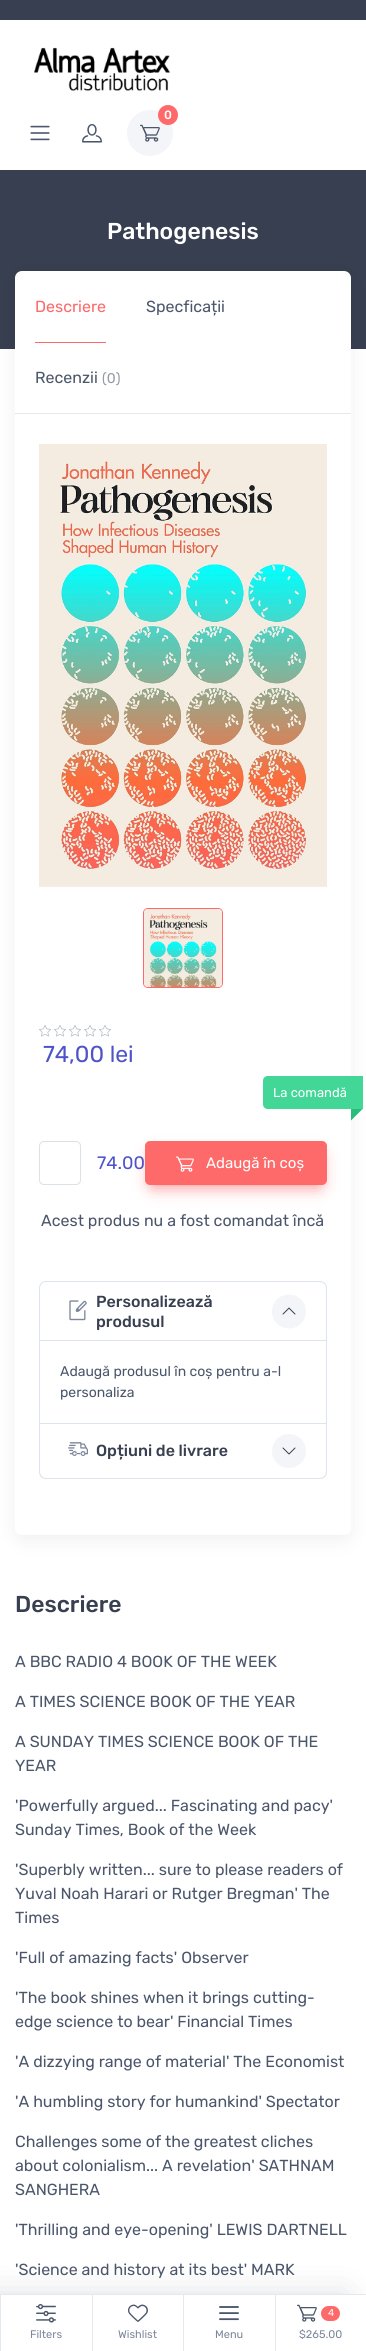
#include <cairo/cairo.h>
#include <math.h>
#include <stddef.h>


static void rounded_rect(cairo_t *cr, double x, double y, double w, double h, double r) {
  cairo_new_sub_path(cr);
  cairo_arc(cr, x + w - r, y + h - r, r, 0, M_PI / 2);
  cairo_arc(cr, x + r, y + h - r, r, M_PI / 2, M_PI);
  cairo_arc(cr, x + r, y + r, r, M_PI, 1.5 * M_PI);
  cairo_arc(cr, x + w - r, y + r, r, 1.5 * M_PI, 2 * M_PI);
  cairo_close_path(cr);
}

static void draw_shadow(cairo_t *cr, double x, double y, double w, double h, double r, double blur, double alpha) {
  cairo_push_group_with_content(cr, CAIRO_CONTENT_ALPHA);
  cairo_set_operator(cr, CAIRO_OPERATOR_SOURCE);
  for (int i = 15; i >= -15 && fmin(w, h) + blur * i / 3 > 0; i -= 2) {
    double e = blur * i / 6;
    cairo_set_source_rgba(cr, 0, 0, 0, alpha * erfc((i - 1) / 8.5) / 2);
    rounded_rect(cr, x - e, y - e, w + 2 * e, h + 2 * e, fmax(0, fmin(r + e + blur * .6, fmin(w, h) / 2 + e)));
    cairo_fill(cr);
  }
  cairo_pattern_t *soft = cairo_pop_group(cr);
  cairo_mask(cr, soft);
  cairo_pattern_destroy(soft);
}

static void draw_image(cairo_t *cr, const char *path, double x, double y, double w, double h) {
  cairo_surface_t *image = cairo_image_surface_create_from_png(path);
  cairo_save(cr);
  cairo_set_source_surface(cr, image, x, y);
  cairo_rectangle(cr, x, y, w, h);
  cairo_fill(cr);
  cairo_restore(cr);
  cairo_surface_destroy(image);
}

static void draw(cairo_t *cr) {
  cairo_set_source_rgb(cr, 1, 1, 1);
  cairo_paint(cr);
  cairo_set_source_rgb(cr, 55 / 255.0, 63 / 255.0, 80 / 255.0);
  cairo_rectangle(cr, 0, 0, 366, 20);
  cairo_fill(cr);
  draw_image(cr, "images/1.png", 34, 47, 136, 44);
  cairo_set_source_rgb(cr, 243 / 255.0, 245 / 255.0, 249 / 255.0);
  cairo_arc(cr, 150, 133, 23, 0, 2 * M_PI);
  cairo_fill(cr);
  draw_image(cr, "images/2.png", 140, 124, 20, 18);
  cairo_set_source_rgb(cr, 254 / 255.0, 105 / 255.0, 106 / 255.0);
  cairo_arc(cr, 168, 115, 10, 0, 2 * M_PI);
  cairo_fill(cr);
  draw_image(cr, "images/3.png", 30, 125, 20, 16);
  draw_image(cr, "images/4.png", 82, 124, 20, 19);
  cairo_set_source_rgb(cr, 55 / 255.0, 63 / 255.0, 80 / 255.0);
  cairo_rectangle(cr, 0, 170, 366, 179);
  cairo_fill(cr);
  cairo_set_source_rgb(cr, 0, 0, 0);
  draw_shadow(cr, 21, 282, 324, 1252, 1, 12, 0.1);
  cairo_set_source_rgb(cr, 1, 1, 1);
  rounded_rect(cr, 15, 271, 336, 1264, 7);
  cairo_fill(cr);
  cairo_set_source_rgb(cr, 227 / 255.0, 233 / 255.0, 239 / 255.0);
  cairo_rectangle(cr, 15, 413, 336, 1);
  cairo_fill(cr);
  cairo_set_source_rgb(cr, 254 / 255.0, 105 / 255.0, 106 / 255.0);
  cairo_rectangle(cr, 35, 342, 71, 1);
  cairo_fill(cr);
  draw_image(cr, "images/5.png", 39, 444, 288, 443);
  rounded_rect(cr, 143.5, 908.5, 79, 79, 4.5);
  cairo_set_line_width(cr, 1);
  cairo_stroke(cr);
  draw_image(cr, "images/6.png", 144, 909, 78, 78);
  draw_image(cr, "images/7.png", 39, 1025, 12, 12);
  draw_image(cr, "images/7.png", 54, 1025, 12, 12);
  draw_image(cr, "images/7.png", 69, 1025, 12, 12);
  draw_image(cr, "images/7.png", 84, 1025, 12, 12);
  draw_image(cr, "images/7.png", 99, 1025, 12, 12);
  cairo_set_source_rgb(cr, 66 / 255.0, 214 / 255.0, 151 / 255.0);
  cairo_new_path(cr);
  cairo_move_to(cr, 268, 1076);
  cairo_line_to(cr, 363, 1076);
  cairo_line_to(cr, 363, 1109);
  cairo_line_to(cr, 268, 1109);
  cairo_curve_to(cr, 265, 1109, 263, 1107, 263, 1104);
  cairo_line_to(cr, 263, 1081);
  cairo_curve_to(cr, 263, 1078, 265, 1076, 268, 1076);
  cairo_close_path(cr);
  cairo_fill(cr);
  cairo_set_source_rgb(cr, 41 / 255.0, 188 / 255.0, 125 / 255.0);
  cairo_new_path(cr);
  cairo_move_to(cr, 362.5, 1109);
  cairo_line_to(cr, 351, 1120.5);
  cairo_line_to(cr, 351, 1109);
  cairo_close_path(cr);
  cairo_fill(cr);
  rounded_rect(cr, 39.5, 1141.5, 41, 43, 4.5);
  cairo_set_source_rgb(cr, 218 / 255.0, 225 / 255.0, 231 / 255.0);
  cairo_stroke(cr);
  cairo_set_source_rgb(cr, 254 / 255.0, 105 / 255.0, 106 / 255.0);
  draw_shadow(cr, 153, 1157, 166, 28, 0, 9, 0.9);
  cairo_set_source_rgb(cr, 254 / 255.0, 105 / 255.0, 106 / 255.0);
  rounded_rect(cr, 145, 1141, 182, 44, 5);
  cairo_fill(cr);
  draw_image(cr, "images/8.png", 176, 1156, 18, 16);
  cairo_new_path(cr);
  cairo_move_to(cr, 46, 1281.5);
  cairo_line_to(cr, 320, 1281.5);
  cairo_curve_to(cr, 323.5, 1281.5, 326.5, 1284.5, 326.5, 1288);
  cairo_line_to(cr, 326.5, 1423.5);
  cairo_line_to(cr, 39.5, 1423.5);
  cairo_line_to(cr, 39.5, 1288);
  cairo_curve_to(cr, 39.5, 1284.5, 42.5, 1281.5, 46, 1281.5);
  cairo_close_path(cr);
  cairo_set_source_rgb(cr, 221 / 255.0, 228 / 255.0, 235 / 255.0);
  cairo_stroke(cr);
  cairo_rectangle(cr, 40, 1340, 286, 1);
  cairo_fill(cr);
  draw_image(cr, "images/9.png", 69, 1300, 18, 21);
  cairo_set_source_rgb(cr, 243 / 255.0, 245 / 255.0, 249 / 255.0);
  cairo_new_path(cr);
  cairo_move_to(cr, 289, 1328.5);
  cairo_curve_to(cr, 279.5, 1328.5, 272, 1321, 272, 1311.5);
  cairo_curve_to(cr, 272, 1302, 279.5, 1294.5, 289, 1294.5);
  cairo_curve_to(cr, 298.5, 1294.5, 306, 1302, 306, 1311.5);
  cairo_curve_to(cr, 306, 1321, 298.5, 1328.5, 289, 1328.5);
  cairo_close_path(cr);
  cairo_fill(cr);
  draw_image(cr, "images/10.png", 282, 1307, 14, 8);
  cairo_set_source_rgb(cr, 221 / 255.0, 228 / 255.0, 235 / 255.0);
  cairo_set_fill_rule(cr, CAIRO_FILL_RULE_EVEN_ODD);
  cairo_new_path(cr);
  cairo_move_to(cr, 39, 1424);
  cairo_line_to(cr, 327, 1424);
  cairo_line_to(cr, 327, 1472);
  cairo_curve_to(cr, 327, 1476, 324, 1479, 320, 1479);
  cairo_line_to(cr, 46, 1479);
  cairo_curve_to(cr, 42, 1479, 39, 1476, 39, 1472);
  cairo_close_path(cr);
  cairo_move_to(cr, 40, 1424);
  cairo_line_to(cr, 326, 1424);
  cairo_line_to(cr, 326, 1472);
  cairo_curve_to(cr, 326, 1475, 323, 1478, 320, 1478);
  cairo_line_to(cr, 46, 1478);
  cairo_curve_to(cr, 43, 1478, 40, 1475, 40, 1472);
  cairo_close_path(cr);
  cairo_fill(cr);
  draw_image(cr, "images/11.png", 68, 1442, 20, 14);
  cairo_set_source_rgb(cr, 243 / 255.0, 245 / 255.0, 249 / 255.0);
  cairo_arc(cr, 289, 1451, 17, 0, 2 * M_PI);
  cairo_fill(cr);
  draw_image(cr, "images/12.png", 282, 1447, 14, 8);
  cairo_set_source_rgb(cr, 43 / 255.0, 52 / 255.0, 69 / 255.0);
  draw_shadow(cr, -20, 2294, 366, 57, 0, 16, 0.15);
  cairo_set_source_rgb(cr, 1, 1, 1);
  cairo_rectangle(cr, 1, 2295, 365, 56);
  cairo_fill(cr);
  cairo_set_source_rgb(cr, 227 / 255.0, 233 / 255.0, 239 / 255.0);
  cairo_rectangle(cr, 0, 2294, 366, 1);
  cairo_fill(cr);
  cairo_rectangle(cr, 0, 2295, 1, 56);
  cairo_fill(cr);
  draw_image(cr, "images/13.png", 36, 2304, 20, 19);
  cairo_rectangle(cr, 92, 2295, 1, 56);
  cairo_fill(cr);
  draw_image(cr, "images/14.png", 128, 2304, 20, 18);
  cairo_rectangle(cr, 183, 2295, 1, 56);
  cairo_fill(cr);
  draw_image(cr, "images/15.png", 219, 2306, 20, 15);
  cairo_rectangle(cr, 275, 2295, 1, 56);
  cairo_fill(cr);
  draw_image(cr, "images/16.png", 297, 2304, 20, 18);
  cairo_set_source_rgb(cr, 254 / 255.0, 105 / 255.0, 106 / 255.0);
  rounded_rect(cr, 321, 2306, 19, 15, 7.5);
  cairo_fill(cr);
  cairo_select_font_face(cr, "Rubik Medium", CAIRO_FONT_SLANT_NORMAL, CAIRO_FONT_WEIGHT_NORMAL);
  cairo_set_font_size(cr, 12);
  cairo_set_source_rgb(cr, 1, 1, 1);
  cairo_move_to(cr, 164, 119);
  cairo_show_text(cr, "0");
  cairo_set_font_size(cr, 23);
  cairo_move_to(cr, 107, 239);
  cairo_show_text(cr, "Pathogenesis");
  cairo_select_font_face(cr, "Rubik", CAIRO_FONT_SLANT_NORMAL, CAIRO_FONT_WEIGHT_NORMAL);
  cairo_set_font_size(cr, 16);
  cairo_set_source_rgb(cr, 254 / 255.0, 105 / 255.0, 106 / 255.0);
  cairo_move_to(cr, 35, 312);
  cairo_show_text(cr, "Descriere");
  cairo_set_source_rgb(cr, 75 / 255.0, 86 / 255.0, 107 / 255.0);
  cairo_move_to(cr, 146, 312);
  cairo_show_text(cr, "Specficații");
  cairo_move_to(cr, 35, 383);
  cairo_show_text(cr, "Recenzii");
  cairo_set_font_size(cr, 14);
  cairo_set_source_rgb(cr, 147 / 255.0, 154 / 255.0, 166 / 255.0);
  cairo_move_to(cr, 102, 383);
  cairo_show_text(cr, "(0)");
  cairo_set_font_size(cr, 23);
  cairo_set_source_rgb(cr, 78 / 255.0, 84 / 255.0, 200 / 255.0);
  cairo_move_to(cr, 43, 1062);
  cairo_show_text(cr, "74,00 lei");
  cairo_set_font_size(cr, 13);
  cairo_set_source_rgb(cr, 1, 1, 1);
  cairo_move_to(cr, 273, 1097);
  cairo_show_text(cr, "La comandă");
  cairo_set_font_size(cr, 18);
  cairo_set_source_rgb(cr, 78 / 255.0, 84 / 255.0, 200 / 255.0);
  cairo_move_to(cr, 97, 1169);
  cairo_show_text(cr, "74.00");
  cairo_set_font_size(cr, 15);
  cairo_set_source_rgb(cr, 1, 1, 1);
  cairo_move_to(cr, 206, 1168);
  cairo_show_text(cr, "Adaugă în coș");
  cairo_set_font_size(cr, 16);
  cairo_set_source_rgb(cr, 75 / 255.0, 86 / 255.0, 107 / 255.0);
  cairo_move_to(cr, 41, 1226);
  cairo_show_text(cr, "Acest produs nu a fost comandat încă");
  cairo_select_font_face(cr, "Rubik Medium", CAIRO_FONT_SLANT_NORMAL, CAIRO_FONT_WEIGHT_NORMAL);
  cairo_set_source_rgb(cr, 55 / 255.0, 63 / 255.0, 80 / 255.0);
  cairo_move_to(cr, 96, 1307);
  cairo_show_text(cr, "Personalizează");
  cairo_move_to(cr, 96, 1327);
  cairo_show_text(cr, "produsul");
  cairo_select_font_face(cr, "Rubik", CAIRO_FONT_SLANT_NORMAL, CAIRO_FONT_WEIGHT_NORMAL);
  cairo_set_font_size(cr, 14);
  cairo_set_source_rgb(cr, 75 / 255.0, 86 / 255.0, 107 / 255.0);
  cairo_move_to(cr, 60, 1376);
  cairo_show_text(cr, "Adaugă produsul în coș pentru a-l");
  cairo_move_to(cr, 60, 1397);
  cairo_show_text(cr, "personaliza");
  cairo_select_font_face(cr, "Rubik Medium", CAIRO_FONT_SLANT_NORMAL, CAIRO_FONT_WEIGHT_NORMAL);
  cairo_set_font_size(cr, 16);
  cairo_set_source_rgb(cr, 55 / 255.0, 63 / 255.0, 80 / 255.0);
  cairo_move_to(cr, 96, 1456);
  cairo_show_text(cr, "Opțiuni de livrare");
  cairo_set_font_size(cr, 23);
  cairo_move_to(cr, 15, 1612);
  cairo_show_text(cr, "Descriere");
  cairo_select_font_face(cr, "Rubik", CAIRO_FONT_SLANT_NORMAL, CAIRO_FONT_WEIGHT_NORMAL);
  cairo_set_font_size(cr, 16);
  cairo_set_source_rgb(cr, 75 / 255.0, 86 / 255.0, 107 / 255.0);
  cairo_move_to(cr, 15, 1667);
  cairo_show_text(cr, "A BBC RADIO 4 BOOK OF THE WEEK");
  cairo_move_to(cr, 15, 1707);
  cairo_show_text(cr, "A TIMES SCIENCE BOOK OF THE YEAR");
  cairo_move_to(cr, 15, 1747);
  cairo_show_text(cr, "A SUNDAY TIMES SCIENCE BOOK OF THE");
  cairo_move_to(cr, 15, 1771);
  cairo_show_text(cr, "YEAR");
  cairo_move_to(cr, 15, 1811);
  cairo_show_text(cr, "'Powerfully argued... Fascinating and pacy'");
  cairo_move_to(cr, 15, 1835);
  cairo_show_text(cr, "Sunday Times, Book of the Week");
  cairo_move_to(cr, 15, 1875);
  cairo_show_text(cr, "'Superbly written... sure to please readers of");
  cairo_move_to(cr, 15, 1899);
  cairo_show_text(cr, "Yuval Noah Harari or Rutger Bregman' The");
  cairo_move_to(cr, 15, 1923);
  cairo_show_text(cr, "Times");
  cairo_move_to(cr, 15, 1963);
  cairo_show_text(cr, "'Full of amazing facts' Observer");
  cairo_move_to(cr, 15, 2003);
  cairo_show_text(cr, "'The book shines when it brings cutting-");
  cairo_move_to(cr, 15, 2027);
  cairo_show_text(cr, "edge science to bear' Financial Times");
  cairo_move_to(cr, 15, 2067);
  cairo_show_text(cr, "'A dizzying range of material' The Economist");
  cairo_move_to(cr, 15, 2107);
  cairo_show_text(cr, "'A humbling story for humankind' Spectator");
  cairo_move_to(cr, 15, 2147);
  cairo_show_text(cr, "Challenges some of the greatest cliches");
  cairo_move_to(cr, 15, 2171);
  cairo_show_text(cr, "about colonialism... A revelation' SATHNAM");
  cairo_move_to(cr, 15, 2195);
  cairo_show_text(cr, "SANGHERA");
  cairo_move_to(cr, 15, 2235);
  cairo_show_text(cr, "'Thrilling and eye-opening' LEWIS DARTNELL");
  cairo_move_to(cr, 15, 2275);
  cairo_show_text(cr, "'Science and history at its best' MARK");
  cairo_set_font_size(cr, 11);
  cairo_set_source_rgb(cr, 125 / 255.0, 135 / 255.0, 156 / 255.0);
  cairo_move_to(cr, 30, 2338);
  cairo_show_text(cr, "Filters");
  cairo_move_to(cr, 118, 2338);
  cairo_show_text(cr, "Wishlist");
  cairo_move_to(cr, 215, 2338);
  cairo_show_text(cr, "Menu");
  cairo_set_font_size(cr, 10);
  cairo_set_source_rgb(cr, 1, 1, 1);
  cairo_move_to(cr, 328, 2316);
  cairo_show_text(cr, "4");
  cairo_set_font_size(cr, 11);
  cairo_set_source_rgb(cr, 125 / 255.0, 135 / 255.0, 156 / 255.0);
  cairo_move_to(cr, 299, 2338);
  cairo_show_text(cr, "$265.00");
}

int main(void) {
  cairo_surface_t *surface = cairo_image_surface_create(CAIRO_FORMAT_RGB24, 366, 2351);
  cairo_t *cr = cairo_create(surface);
  cairo_font_options_t *options = cairo_font_options_create();
  cairo_font_options_set_hint_metrics(options, CAIRO_HINT_METRICS_OFF);
  cairo_font_options_set_hint_style(options, CAIRO_HINT_STYLE_NONE);
  cairo_set_font_options(cr, options);
  cairo_set_miter_limit(cr, 4);
  draw(cr);
  cairo_surface_write_to_png(surface, "out.png");
  cairo_font_options_destroy(options);
  cairo_destroy(cr);
  cairo_surface_destroy(surface);
  return 0;
}
